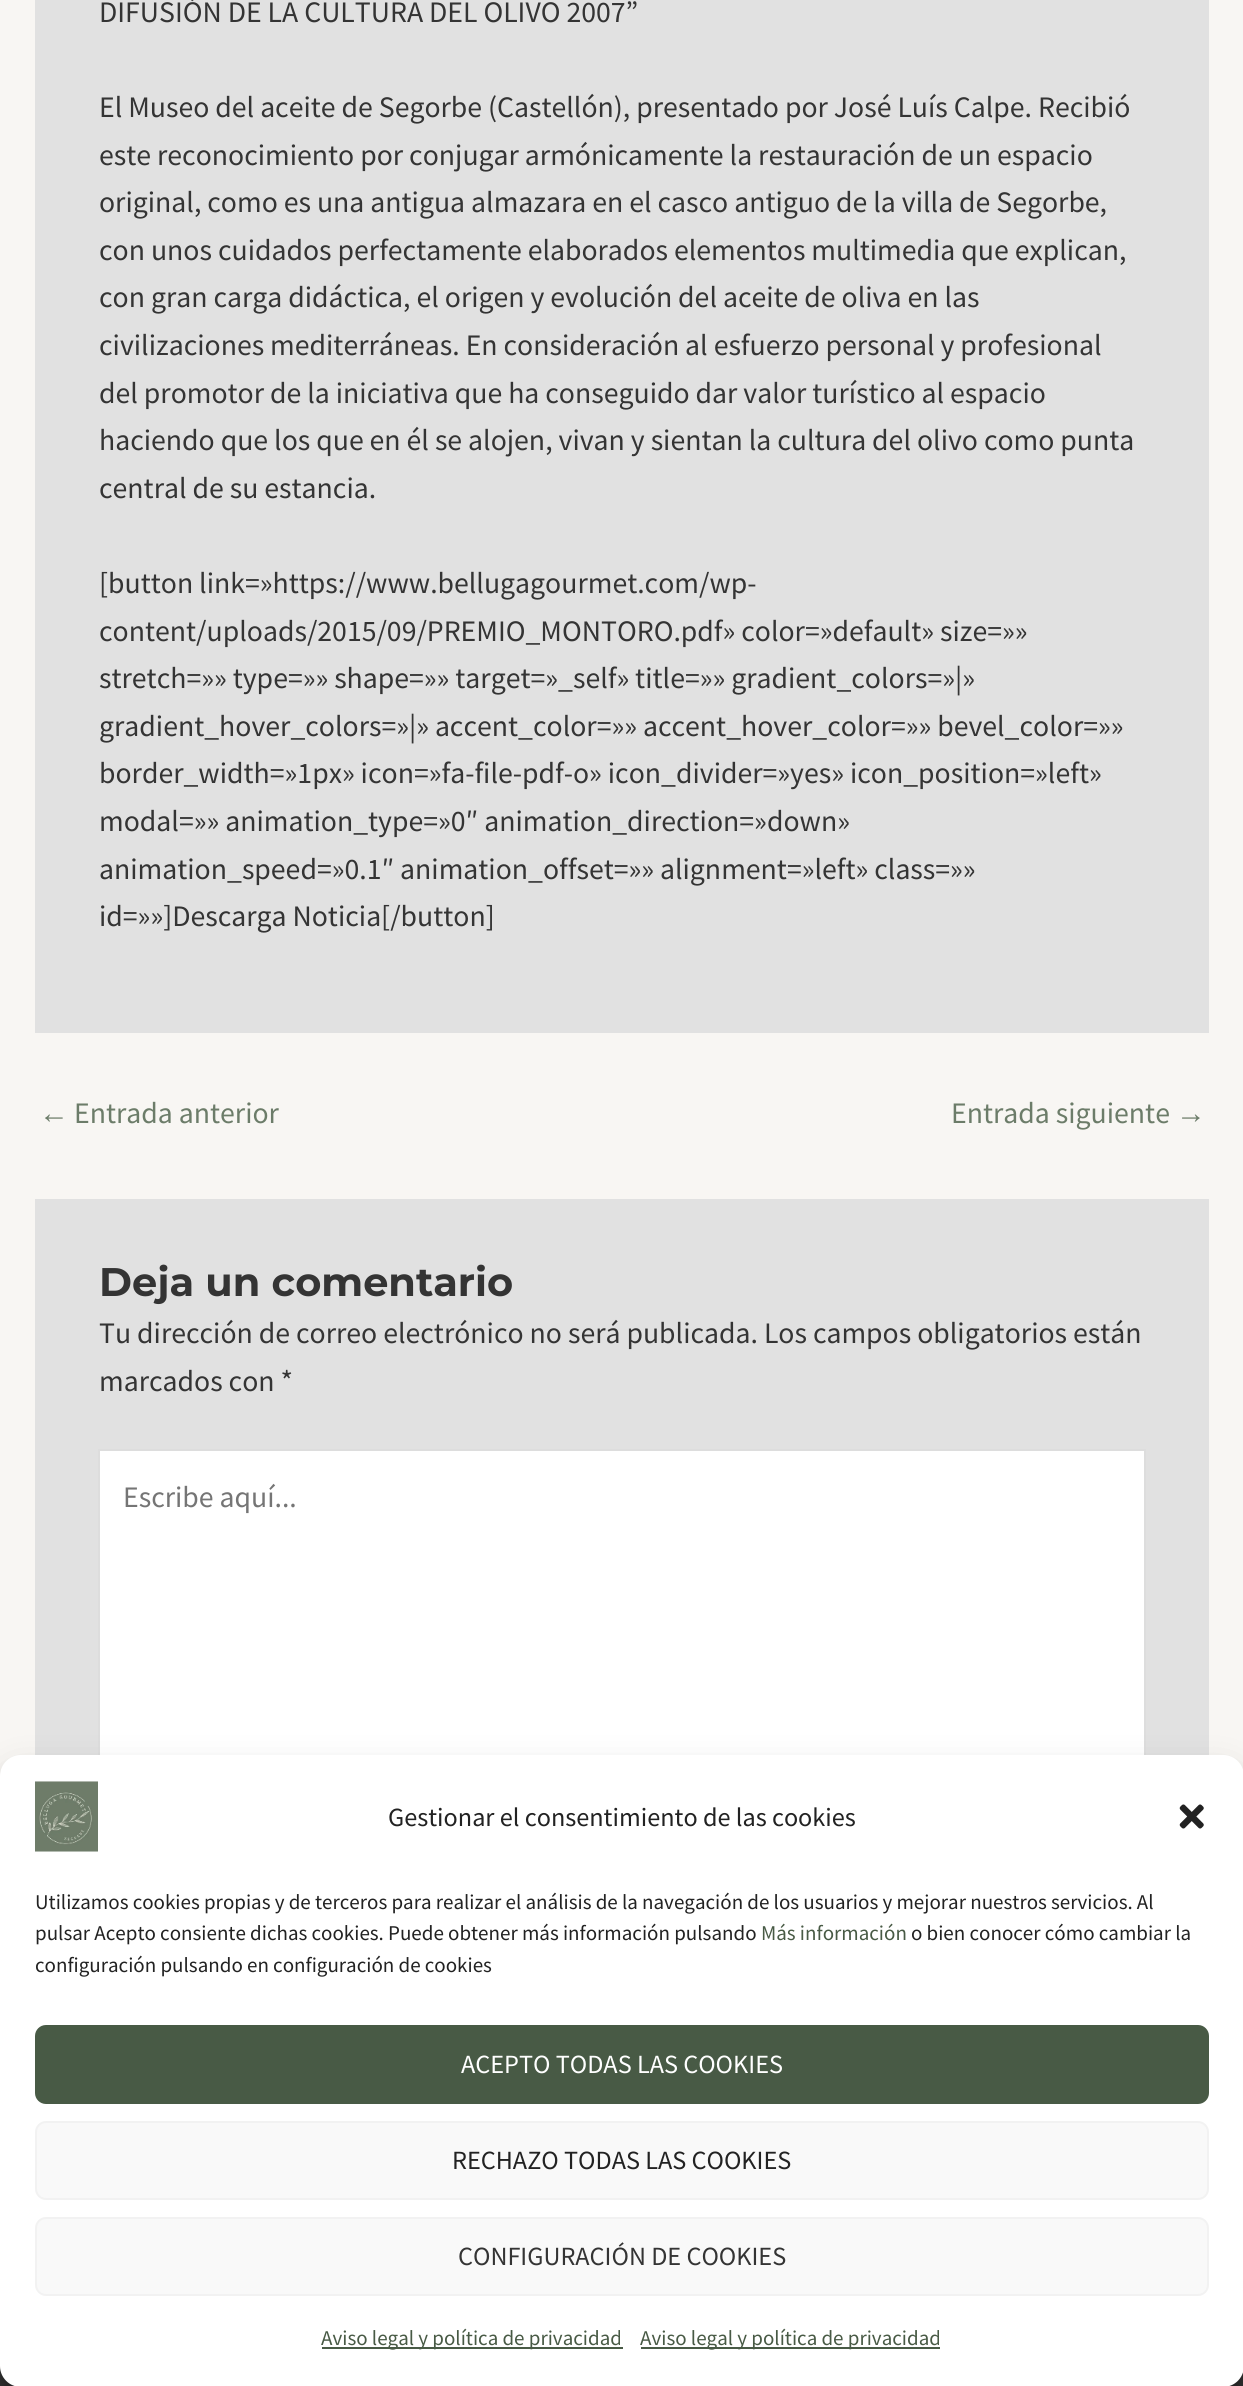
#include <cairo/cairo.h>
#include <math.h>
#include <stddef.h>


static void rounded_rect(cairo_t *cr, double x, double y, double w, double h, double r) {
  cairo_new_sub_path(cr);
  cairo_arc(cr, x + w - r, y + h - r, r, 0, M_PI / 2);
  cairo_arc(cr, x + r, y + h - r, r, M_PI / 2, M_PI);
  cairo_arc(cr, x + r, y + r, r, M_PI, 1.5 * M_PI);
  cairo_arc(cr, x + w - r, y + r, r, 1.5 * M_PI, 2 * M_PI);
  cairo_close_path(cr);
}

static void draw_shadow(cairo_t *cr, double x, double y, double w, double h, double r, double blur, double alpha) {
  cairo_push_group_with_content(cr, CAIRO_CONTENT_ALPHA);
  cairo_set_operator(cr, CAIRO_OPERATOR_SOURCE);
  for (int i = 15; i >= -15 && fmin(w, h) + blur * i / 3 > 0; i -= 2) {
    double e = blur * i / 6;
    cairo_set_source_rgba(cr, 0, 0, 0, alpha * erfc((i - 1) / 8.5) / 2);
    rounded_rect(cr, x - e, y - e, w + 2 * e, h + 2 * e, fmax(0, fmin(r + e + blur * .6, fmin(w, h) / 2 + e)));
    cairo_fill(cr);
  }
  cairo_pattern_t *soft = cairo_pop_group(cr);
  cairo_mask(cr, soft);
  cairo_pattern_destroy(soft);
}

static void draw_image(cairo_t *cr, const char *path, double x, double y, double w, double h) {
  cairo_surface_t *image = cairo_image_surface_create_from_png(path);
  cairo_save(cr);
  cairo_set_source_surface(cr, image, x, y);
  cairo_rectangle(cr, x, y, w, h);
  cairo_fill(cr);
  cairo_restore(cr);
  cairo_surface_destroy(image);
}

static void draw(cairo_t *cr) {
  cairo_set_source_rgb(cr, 248 / 255.0, 246 / 255.0, 243 / 255.0);
  cairo_paint(cr);
  cairo_set_source_rgb(cr, 225 / 255.0, 225 / 255.0, 225 / 255.0);
  cairo_rectangle(cr, 35, 0, 1174, 1033);
  cairo_fill(cr);
  cairo_rectangle(cr, 35, 1199, 1174, 556);
  cairo_fill(cr);
  cairo_set_source_rgb(cr, 1, 1, 1);
  cairo_rectangle(cr, 100, 1451, 1044, 304);
  cairo_fill(cr);
  cairo_rectangle(cr, 99, 1450, 1046, 427);
  cairo_set_source_rgb(cr, 221 / 255.0, 221 / 255.0, 221 / 255.0);
  cairo_stroke(cr);
  cairo_set_source_rgb(cr, 52 / 255.0, 52 / 255.0, 52 / 255.0);
  cairo_rectangle(cr, 0, 2366, 1243, 20);
  cairo_fill(cr);
  cairo_set_source_rgb(cr, 0, 0, 0);
  draw_shadow(cr, 0, 1766, 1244, 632, 21, 5, 0.23);
  draw_shadow(cr, 0, 1773, 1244, 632, 21, 17.5, 0.19);
  cairo_set_source_rgb(cr, 1, 1, 1);
  rounded_rect(cr, 0, 1755, 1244, 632, 21);
  cairo_fill(cr);
  draw_image(cr, "images/1.png", 35, 1781, 63, 71);
  draw_image(cr, "images/2.png", 1179, 1804, 25, 25);
  cairo_set_source_rgb(cr, 72 / 255.0, 90 / 255.0, 69 / 255.0);
  rounded_rect(cr, 36, 2026, 1172, 77, 10);
  cairo_fill_preserve(cr);
  cairo_stroke(cr);
  cairo_set_source_rgb(cr, 249 / 255.0, 249 / 255.0, 249 / 255.0);
  rounded_rect(cr, 36, 2122, 1172, 77, 10);
  cairo_fill_preserve(cr);
  cairo_set_source_rgb(cr, 242 / 255.0, 242 / 255.0, 242 / 255.0);
  cairo_stroke(cr);
  cairo_set_source_rgb(cr, 249 / 255.0, 249 / 255.0, 249 / 255.0);
  rounded_rect(cr, 36, 2218, 1172, 77, 10);
  cairo_fill_preserve(cr);
  cairo_set_source_rgb(cr, 242 / 255.0, 242 / 255.0, 242 / 255.0);
  cairo_stroke(cr);
  cairo_set_source_rgb(cr, 72 / 255.0, 90 / 255.0, 69 / 255.0);
  cairo_rectangle(cr, 322, 2347, 301, 2);
  cairo_fill(cr);
  cairo_rectangle(cr, 641, 2347, 299, 2);
  cairo_fill(cr);
  cairo_select_font_face(cr, "Source Sans Pro", CAIRO_FONT_SLANT_NORMAL, CAIRO_FONT_WEIGHT_NORMAL);
  cairo_set_font_size(cr, 29.75);
  cairo_set_source_rgb(cr, 52 / 255.0, 52 / 255.0, 52 / 255.0);
  cairo_move_to(cr, 99, 22);
  cairo_show_text(cr, "DIFUSIÓN DE LA CULTURA DEL OLIVO 2007”");
  cairo_move_to(cr, 99, 117);
  cairo_show_text(cr, "El Museo del aceite de Segorbe (Castellón), presentado por José Luís Calpe. Recibió");
  cairo_move_to(cr, 99, 165);
  cairo_show_text(cr, "este reconocimiento por conjugar armónicamente la restauración de un espacio");
  cairo_move_to(cr, 99, 212);
  cairo_show_text(cr, "original, como es una antigua almazara en el casco antiguo de la villa de Segorbe,");
  cairo_move_to(cr, 99, 260);
  cairo_show_text(cr, "con unos cuidados perfectamente elaborados elementos multimedia que explican,");
  cairo_move_to(cr, 99, 307);
  cairo_show_text(cr, "con gran carga didáctica, el origen y evolución del aceite de oliva en las");
  cairo_move_to(cr, 99, 355);
  cairo_show_text(cr, "civilizaciones mediterráneas. En consideración al esfuerzo personal y profesional");
  cairo_move_to(cr, 99, 403);
  cairo_show_text(cr, "del promotor de la iniciativa que ha conseguido dar valor turístico al espacio");
  cairo_move_to(cr, 99, 450);
  cairo_show_text(cr, "haciendo que los que en él se alojen, vivan y sientan la cultura del olivo como punta");
  cairo_move_to(cr, 99, 498);
  cairo_show_text(cr, "central de su estancia.");
  cairo_move_to(cr, 99, 593);
  cairo_show_text(cr, "[button link=»https://www.bellugagourmet.com/wp-");
  cairo_move_to(cr, 99, 641);
  cairo_show_text(cr, "content/uploads/2015/09/PREMIO_MONTORO.pdf» color=»default» size=»»");
  cairo_move_to(cr, 99, 688);
  cairo_show_text(cr, "stretch=»» type=»» shape=»» target=»_self» title=»» gradient_colors=»|»");
  cairo_move_to(cr, 99, 736);
  cairo_show_text(cr, "gradient_hover_colors=»|» accent_color=»» accent_hover_color=»» bevel_color=»»");
  cairo_move_to(cr, 99, 783);
  cairo_show_text(cr, "border_width=»1px» icon=»fa-file-pdf-o» icon_divider=»yes» icon_position=»left»");
  cairo_move_to(cr, 99, 831);
  cairo_show_text(cr, "modal=»» animation_type=»0″ animation_direction=»down»");
  cairo_move_to(cr, 99, 879);
  cairo_show_text(cr, "animation_speed=»0.1″ animation_offset=»» alignment=»left» class=»»");
  cairo_move_to(cr, 99, 926);
  cairo_show_text(cr, "id=»»]Descarga Noticia[/button]");
  cairo_select_font_face(cr, "Liberation Sans", CAIRO_FONT_SLANT_NORMAL, CAIRO_FONT_WEIGHT_NORMAL);
  cairo_set_source_rgb(cr, 108 / 255.0, 124 / 255.0, 105 / 255.0);
  cairo_move_to(cr, 39, 1123);
  cairo_show_text(cr, "←");
  cairo_select_font_face(cr, "Source Sans Pro", CAIRO_FONT_SLANT_NORMAL, CAIRO_FONT_WEIGHT_NORMAL);
  cairo_move_to(cr, 74, 1123);
  cairo_show_text(cr, "Entrada anterior");
  cairo_move_to(cr, 951, 1123);
  cairo_show_text(cr, "Entrada siguiente");
  cairo_select_font_face(cr, "Liberation Sans", CAIRO_FONT_SLANT_NORMAL, CAIRO_FONT_WEIGHT_NORMAL);
  cairo_move_to(cr, 1176, 1123);
  cairo_show_text(cr, "→");
  cairo_select_font_face(cr, "Montserrat Thin", CAIRO_FONT_SLANT_NORMAL, CAIRO_FONT_WEIGHT_NORMAL);
  cairo_set_font_size(cr, 39.9);
  cairo_set_source_rgb(cr, 52 / 255.0, 52 / 255.0, 52 / 255.0);
  cairo_move_to(cr, 99, 1296);
  cairo_show_text(cr, "Deja un comentario");
  cairo_select_font_face(cr, "Source Sans Pro", CAIRO_FONT_SLANT_NORMAL, CAIRO_FONT_WEIGHT_NORMAL);
  cairo_set_font_size(cr, 29.75);
  cairo_move_to(cr, 99, 1343);
  cairo_show_text(cr, "Tu dirección de correo electrónico no será publicada. Los campos obligatorios están");
  cairo_move_to(cr, 99, 1391);
  cairo_show_text(cr, "marcados con *");
  cairo_set_source_rgb(cr, 117 / 255.0, 117 / 255.0, 117 / 255.0);
  cairo_move_to(cr, 123, 1507);
  cairo_show_text(cr, "Escribe aquí...");
  cairo_set_font_size(cr, 26.25);
  cairo_set_source_rgb(cr, 34 / 255.0, 34 / 255.0, 34 / 255.0);
  cairo_move_to(cr, 388, 1826);
  cairo_show_text(cr, "Gestionar el consentimiento de las cookies");
  cairo_set_font_size(cr, 21);
  cairo_move_to(cr, 35, 1909);
  cairo_show_text(cr, "Utilizamos cookies propias y de terceros para realizar el análisis de la navegación de los usuarios y mejorar nuestros servicios. Al");
  cairo_move_to(cr, 35, 1940);
  cairo_show_text(cr, "pulsar Acepto consiente dichas cookies. Puede obtener más información pulsando");
  cairo_set_source_rgb(cr, 72 / 255.0, 90 / 255.0, 69 / 255.0);
  cairo_move_to(cr, 761, 1940);
  cairo_show_text(cr, "Más información");
  cairo_set_source_rgb(cr, 34 / 255.0, 34 / 255.0, 34 / 255.0);
  cairo_move_to(cr, 911, 1940);
  cairo_show_text(cr, "o bien conocer cómo cambiar la");
  cairo_move_to(cr, 35, 1972);
  cairo_show_text(cr, "configuración pulsando en configuración de cookies");
  cairo_set_font_size(cr, 26.25);
  cairo_set_source_rgb(cr, 1, 1, 1);
  cairo_move_to(cr, 461, 2073);
  cairo_show_text(cr, "ACEPTO TODAS LAS COOKIES");
  cairo_set_source_rgb(cr, 34 / 255.0, 34 / 255.0, 34 / 255.0);
  cairo_move_to(cr, 452, 2169);
  cairo_show_text(cr, "RECHAZO TODAS LAS COOKIES");
  cairo_set_source_rgb(cr, 52 / 255.0, 52 / 255.0, 52 / 255.0);
  cairo_move_to(cr, 458, 2265);
  cairo_show_text(cr, "CONFIGURACIÓN DE COOKIES");
  cairo_set_font_size(cr, 21);
  cairo_set_source_rgb(cr, 72 / 255.0, 90 / 255.0, 69 / 255.0);
  cairo_move_to(cr, 321, 2345);
  cairo_show_text(cr, "Aviso legal y política de privacidad");
  cairo_move_to(cr, 640, 2345);
  cairo_show_text(cr, "Aviso legal y política de privacidad");
}

int main(void) {
  cairo_surface_t *surface = cairo_image_surface_create(CAIRO_FORMAT_RGB24, 1243, 2386);
  cairo_t *cr = cairo_create(surface);
  cairo_font_options_t *options = cairo_font_options_create();
  cairo_font_options_set_hint_metrics(options, CAIRO_HINT_METRICS_OFF);
  cairo_font_options_set_hint_style(options, CAIRO_HINT_STYLE_NONE);
  cairo_set_font_options(cr, options);
  cairo_set_miter_limit(cr, 4);
  draw(cr);
  cairo_surface_write_to_png(surface, "out.png");
  cairo_font_options_destroy(options);
  cairo_destroy(cr);
  cairo_surface_destroy(surface);
  return 0;
}
